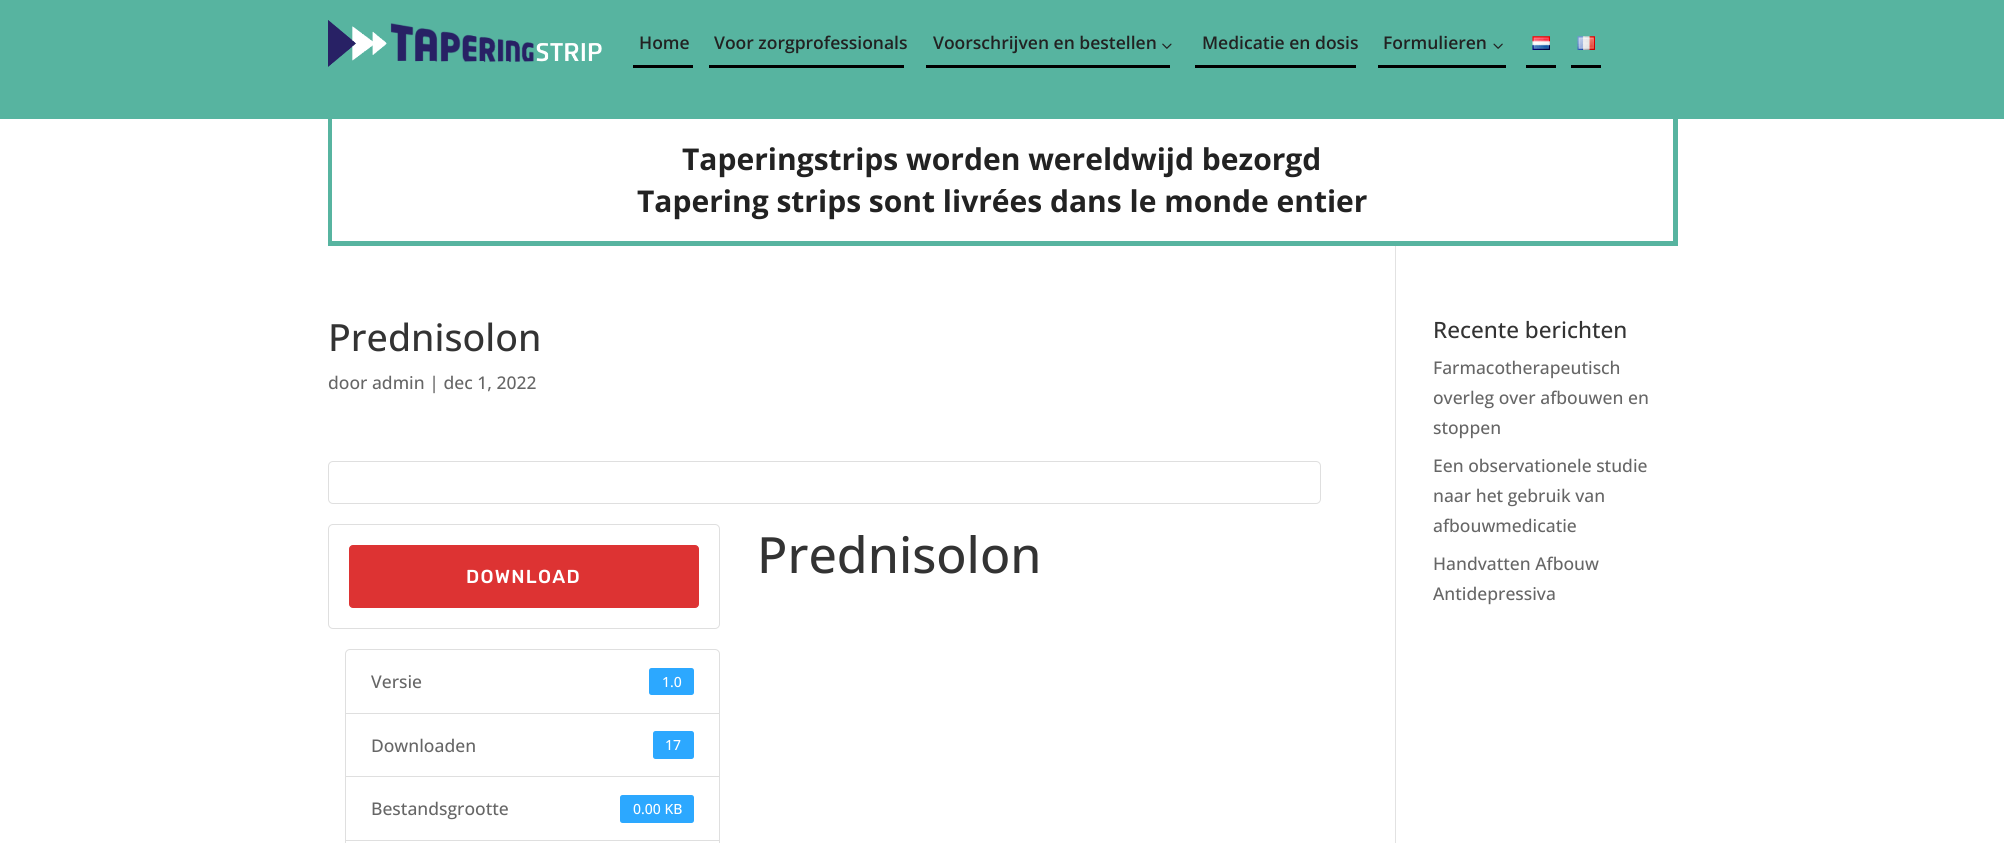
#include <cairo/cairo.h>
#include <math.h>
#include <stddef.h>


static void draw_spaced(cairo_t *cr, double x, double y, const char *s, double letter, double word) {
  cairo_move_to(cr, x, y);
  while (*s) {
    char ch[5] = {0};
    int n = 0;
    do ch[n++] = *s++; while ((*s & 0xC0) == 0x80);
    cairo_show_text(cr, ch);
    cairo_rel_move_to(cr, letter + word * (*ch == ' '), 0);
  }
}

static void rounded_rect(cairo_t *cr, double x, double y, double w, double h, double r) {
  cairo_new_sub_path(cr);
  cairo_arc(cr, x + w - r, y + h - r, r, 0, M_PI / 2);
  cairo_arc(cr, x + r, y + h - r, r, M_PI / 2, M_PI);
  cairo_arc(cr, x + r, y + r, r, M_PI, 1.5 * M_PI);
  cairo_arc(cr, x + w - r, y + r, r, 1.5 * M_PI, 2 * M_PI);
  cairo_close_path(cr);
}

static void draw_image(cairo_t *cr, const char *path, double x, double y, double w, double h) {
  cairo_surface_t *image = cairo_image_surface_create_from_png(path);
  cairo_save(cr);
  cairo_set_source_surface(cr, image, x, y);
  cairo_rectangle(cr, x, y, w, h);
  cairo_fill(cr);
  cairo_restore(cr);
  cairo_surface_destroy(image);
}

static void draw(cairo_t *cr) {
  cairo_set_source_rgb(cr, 1, 1, 1);
  cairo_paint(cr);
  cairo_set_source_rgb(cr, 87 / 255.0, 180 / 255.0, 160 / 255.0);
  cairo_rectangle(cr, 0, 0, 2004, 119);
  cairo_fill(cr);
  draw_image(cr, "images/1.png", 328, 20, 274, 47);
  cairo_set_source_rgb(cr, 0, 0, 0);
  cairo_rectangle(cr, 633, 65, 60, 3);
  cairo_fill(cr);
  cairo_rectangle(cr, 709, 65, 195, 3);
  cairo_fill(cr);
  draw_image(cr, "images/2.png", 1162, 43, 10, 6);
  cairo_rectangle(cr, 926, 65, 244, 3);
  cairo_fill(cr);
  cairo_rectangle(cr, 1195, 65, 161, 3);
  cairo_fill(cr);
  draw_image(cr, "images/3.png", 1493, 43, 10, 6);
  cairo_rectangle(cr, 1378, 65, 128, 3);
  cairo_fill(cr);
  draw_image(cr, "images/4.png", 1532, 36, 18, 14);
  cairo_rectangle(cr, 1526, 65, 30, 3);
  cairo_fill(cr);
  draw_image(cr, "images/5.png", 1577, 36, 18, 14);
  cairo_rectangle(cr, 1571, 65, 30, 3);
  cairo_fill(cr);
  cairo_set_source_rgb(cr, 87 / 255.0, 180 / 255.0, 160 / 255.0);
  cairo_rectangle(cr, 1673, 119, 5, 127);
  cairo_fill(cr);
  cairo_rectangle(cr, 328, 241, 1350, 5);
  cairo_fill(cr);
  cairo_rectangle(cr, 328, 119, 4, 127);
  cairo_fill(cr);
  cairo_set_source_rgb(cr, 226 / 255.0, 226 / 255.0, 226 / 255.0);
  cairo_rectangle(cr, 1395, 246, 1, 597);
  cairo_fill(cr);
  rounded_rect(cr, 328.5, 461.5, 992, 42, 4.5);
  cairo_set_source_rgb(cr, 223 / 255.0, 223 / 255.0, 223 / 255.0);
  cairo_set_line_width(cr, 1);
  cairo_stroke(cr);
  rounded_rect(cr, 328.5, 524.5, 391, 104, 4.5);
  cairo_stroke(cr);
  cairo_set_source_rgb(cr, 221 / 255.0, 51 / 255.0, 51 / 255.0);
  rounded_rect(cr, 349.5, 545.5, 349, 62, 3.5);
  cairo_fill_preserve(cr);
  cairo_stroke(cr);
  cairo_new_path(cr);
  cairo_move_to(cr, 350, 649.5);
  cairo_line_to(cr, 715, 649.5);
  cairo_curve_to(cr, 717.5, 649.5, 719.5, 651.5, 719.5, 654);
  cairo_line_to(cr, 719.5, 713.5);
  cairo_line_to(cr, 345.5, 713.5);
  cairo_line_to(cr, 345.5, 654);
  cairo_curve_to(cr, 345.5, 651.5, 347.5, 649.5, 350, 649.5);
  cairo_close_path(cr);
  cairo_set_source_rgb(cr, 223 / 255.0, 223 / 255.0, 223 / 255.0);
  cairo_stroke(cr);
  cairo_set_source_rgb(cr, 44 / 255.0, 168 / 255.0, 1);
  rounded_rect(cr, 649, 668, 45, 27, 2.5);
  cairo_fill(cr);
  cairo_rectangle(cr, 345.5, 713.5, 374, 64);
  cairo_set_source_rgb(cr, 223 / 255.0, 223 / 255.0, 223 / 255.0);
  cairo_stroke(cr);
  cairo_set_source_rgb(cr, 44 / 255.0, 168 / 255.0, 1);
  rounded_rect(cr, 653, 731, 41, 28, 2.5);
  cairo_fill(cr);
  cairo_set_source_rgb(cr, 1, 1, 1);
  cairo_rectangle(cr, 346, 777, 373, 1);
  cairo_fill(cr);
  cairo_rectangle(cr, 345.5, 776.5, 374, 64);
  cairo_set_source_rgb(cr, 223 / 255.0, 223 / 255.0, 223 / 255.0);
  cairo_stroke(cr);
  cairo_set_source_rgb(cr, 44 / 255.0, 168 / 255.0, 1);
  rounded_rect(cr, 620, 795, 74, 28, 2.5);
  cairo_fill(cr);
  cairo_rectangle(cr, 345.5, 840.5, 374, 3);
  cairo_set_source_rgb(cr, 223 / 255.0, 223 / 255.0, 223 / 255.0);
  cairo_stroke(cr);
  cairo_select_font_face(cr, "Open Sans SemiBold", CAIRO_FONT_SLANT_NORMAL, CAIRO_FONT_WEIGHT_NORMAL);
  cairo_set_font_size(cr, 17.5);
  cairo_set_source_rgb(cr, 34 / 255.0, 34 / 255.0, 34 / 255.0);
  cairo_move_to(cr, 639, 49);
  cairo_show_text(cr, "Home");
  cairo_move_to(cr, 714, 49);
  cairo_show_text(cr, "Voor zorgprofessionals");
  cairo_move_to(cr, 933, 49);
  cairo_show_text(cr, "Voorschrijven en bestellen");
  cairo_move_to(cr, 1202, 49);
  cairo_show_text(cr, "Medicatie en dosis");
  cairo_move_to(cr, 1383, 49);
  cairo_show_text(cr, "Formulieren");
  cairo_select_font_face(cr, "Open Sans", CAIRO_FONT_SLANT_NORMAL, CAIRO_FONT_WEIGHT_BOLD);
  cairo_set_font_size(cr, 30);
  cairo_move_to(cr, 682, 170);
  cairo_show_text(cr, "Taperingstrips worden wereldwijd bezorgd");
  cairo_move_to(cr, 637, 212);
  cairo_show_text(cr, "Tapering strips sont livrées dans le monde entier");
  cairo_select_font_face(cr, "Open Sans Medium", CAIRO_FONT_SLANT_NORMAL, CAIRO_FONT_WEIGHT_NORMAL);
  cairo_set_font_size(cr, 37.5);
  cairo_set_source_rgb(cr, 51 / 255.0, 51 / 255.0, 51 / 255.0);
  cairo_move_to(cr, 328, 351);
  cairo_show_text(cr, "Prednisolon");
  cairo_set_font_size(cr, 17.5);
  cairo_set_source_rgb(cr, 102 / 255.0, 102 / 255.0, 102 / 255.0);
  cairo_move_to(cr, 328, 389);
  cairo_show_text(cr, "door admin | dec 1, 2022");
  cairo_set_font_size(cr, 50);
  cairo_set_source_rgb(cr, 51 / 255.0, 51 / 255.0, 51 / 255.0);
  cairo_move_to(cr, 757, 573);
  cairo_show_text(cr, "Prednisolon");
  cairo_select_font_face(cr, "Rubik Medium", CAIRO_FONT_SLANT_NORMAL, CAIRO_FONT_WEIGHT_NORMAL);
  cairo_set_font_size(cr, 18.75);
  cairo_set_source_rgb(cr, 1, 1, 1);
  draw_spaced(cr, 466, 583, "DOWNLOAD", 1.25, 0);
  cairo_select_font_face(cr, "Open Sans Medium", CAIRO_FONT_SLANT_NORMAL, CAIRO_FONT_WEIGHT_NORMAL);
  cairo_set_font_size(cr, 17.5);
  cairo_set_source_rgb(cr, 102 / 255.0, 102 / 255.0, 102 / 255.0);
  cairo_move_to(cr, 371, 688);
  cairo_show_text(cr, "Versie");
  cairo_set_font_size(cr, 14);
  cairo_set_source_rgb(cr, 1, 1, 1);
  cairo_move_to(cr, 662, 687);
  cairo_show_text(cr, "1.0");
  cairo_set_font_size(cr, 17.5);
  cairo_set_source_rgb(cr, 102 / 255.0, 102 / 255.0, 102 / 255.0);
  cairo_move_to(cr, 371, 752);
  cairo_show_text(cr, "Downloaden");
  cairo_set_font_size(cr, 14);
  cairo_set_source_rgb(cr, 1, 1, 1);
  cairo_move_to(cr, 665, 750);
  cairo_show_text(cr, "17");
  cairo_set_font_size(cr, 17.5);
  cairo_set_source_rgb(cr, 102 / 255.0, 102 / 255.0, 102 / 255.0);
  cairo_move_to(cr, 371, 815);
  cairo_show_text(cr, "Bestandsgrootte");
  cairo_set_font_size(cr, 14);
  cairo_set_source_rgb(cr, 1, 1, 1);
  cairo_move_to(cr, 633, 814);
  cairo_show_text(cr, "0.00 KB");
  cairo_set_font_size(cr, 22.5);
  cairo_set_source_rgb(cr, 51 / 255.0, 51 / 255.0, 51 / 255.0);
  cairo_move_to(cr, 1433, 338);
  cairo_show_text(cr, "Recente berichten");
  cairo_set_font_size(cr, 17.5);
  cairo_set_source_rgb(cr, 102 / 255.0, 102 / 255.0, 102 / 255.0);
  cairo_move_to(cr, 1433, 374);
  cairo_show_text(cr, "Farmacotherapeutisch");
  cairo_move_to(cr, 1433, 404);
  cairo_show_text(cr, "overleg over afbouwen en");
  cairo_move_to(cr, 1433, 434);
  cairo_show_text(cr, "stoppen");
  cairo_move_to(cr, 1433, 472);
  cairo_show_text(cr, "Een observationele studie");
  cairo_move_to(cr, 1433, 502);
  cairo_show_text(cr, "naar het gebruik van");
  cairo_move_to(cr, 1433, 532);
  cairo_show_text(cr, "afbouwmedicatie");
  cairo_move_to(cr, 1433, 570);
  cairo_show_text(cr, "Handvatten Afbouw");
  cairo_move_to(cr, 1433, 600);
  cairo_show_text(cr, "Antidepressiva");
}

int main(void) {
  cairo_surface_t *surface = cairo_image_surface_create(CAIRO_FORMAT_RGB24, 2004, 843);
  cairo_t *cr = cairo_create(surface);
  cairo_font_options_t *options = cairo_font_options_create();
  cairo_font_options_set_hint_metrics(options, CAIRO_HINT_METRICS_OFF);
  cairo_font_options_set_hint_style(options, CAIRO_HINT_STYLE_NONE);
  cairo_set_font_options(cr, options);
  cairo_set_miter_limit(cr, 4);
  draw(cr);
  cairo_surface_write_to_png(surface, "out.png");
  cairo_font_options_destroy(options);
  cairo_destroy(cr);
  cairo_surface_destroy(surface);
  return 0;
}
